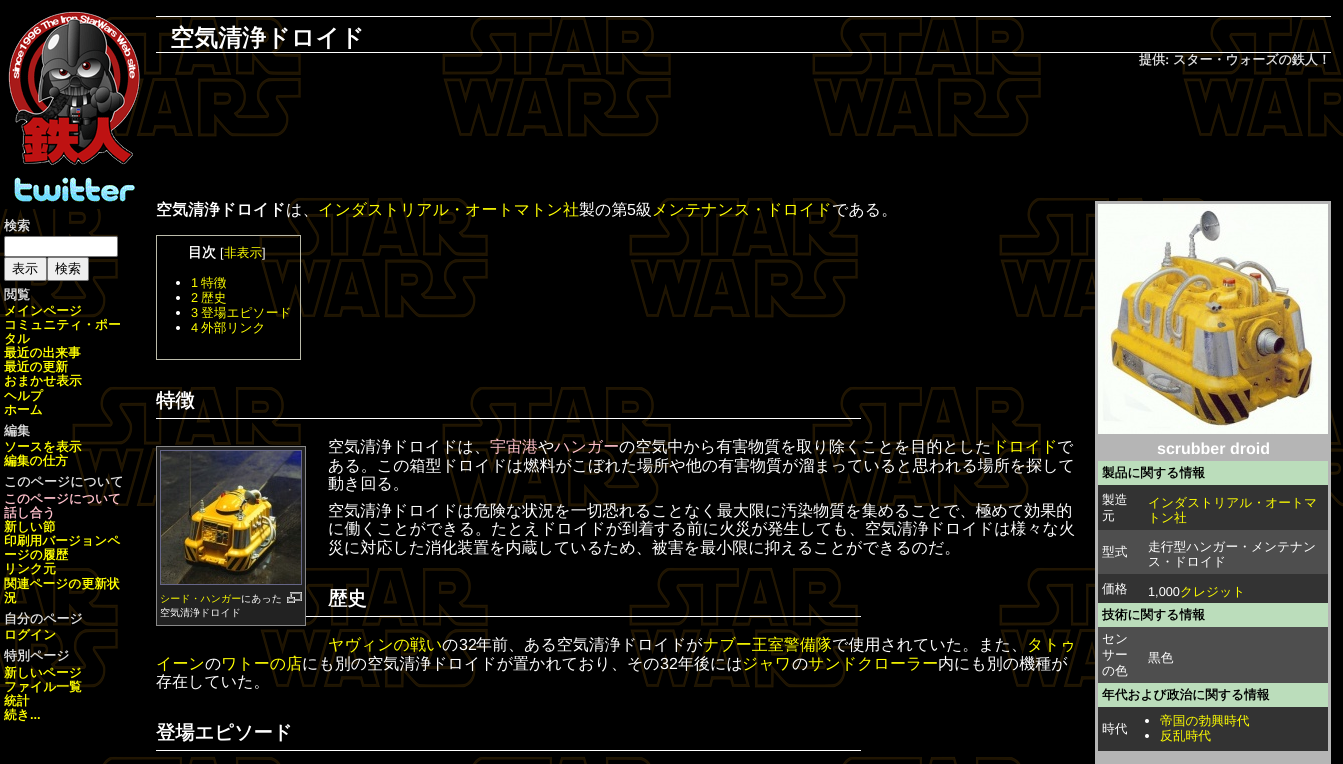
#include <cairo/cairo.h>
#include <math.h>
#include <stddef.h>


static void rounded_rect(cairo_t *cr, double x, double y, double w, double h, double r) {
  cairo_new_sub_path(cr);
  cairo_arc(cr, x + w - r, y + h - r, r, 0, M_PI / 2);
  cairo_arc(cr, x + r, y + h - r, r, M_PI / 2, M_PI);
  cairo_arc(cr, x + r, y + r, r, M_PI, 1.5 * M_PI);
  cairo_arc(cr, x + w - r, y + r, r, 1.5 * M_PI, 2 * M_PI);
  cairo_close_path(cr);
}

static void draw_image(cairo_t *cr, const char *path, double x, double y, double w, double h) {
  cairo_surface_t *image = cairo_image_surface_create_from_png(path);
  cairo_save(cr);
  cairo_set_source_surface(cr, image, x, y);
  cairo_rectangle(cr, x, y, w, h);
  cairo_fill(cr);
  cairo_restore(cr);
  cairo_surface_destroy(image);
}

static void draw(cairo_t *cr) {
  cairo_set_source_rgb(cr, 0, 0, 0);
  cairo_paint(cr);
  draw_image(cr, "images/1.png", 0, 17, 1343, 747);
  draw_image(cr, "images/2.png", 8, 11, 132, 154);
  draw_image(cr, "images/3.png", 5, 177, 130, 32);
  cairo_set_source_rgb(cr, 1, 1, 1);
  rounded_rect(cr, 4.5, 236.5, 113, 20, 1.5);
  cairo_fill_preserve(cr);
  cairo_set_source_rgb(cr, 118 / 255.0, 118 / 255.0, 118 / 255.0);
  cairo_set_line_width(cr, 1);
  cairo_stroke(cr);
  cairo_set_source_rgb(cr, 239 / 255.0, 239 / 255.0, 239 / 255.0);
  rounded_rect(cr, 4.5, 257.5, 42, 23, 1.5);
  cairo_fill_preserve(cr);
  cairo_set_source_rgb(cr, 118 / 255.0, 118 / 255.0, 118 / 255.0);
  cairo_stroke(cr);
  cairo_set_source_rgb(cr, 239 / 255.0, 239 / 255.0, 239 / 255.0);
  rounded_rect(cr, 47.5, 257.5, 41, 23, 1.5);
  cairo_fill_preserve(cr);
  cairo_set_source_rgb(cr, 118 / 255.0, 118 / 255.0, 118 / 255.0);
  cairo_stroke(cr);
  cairo_set_source_rgb(cr, 1, 1, 1);
  cairo_rectangle(cr, 156, 16, 1175, 1);
  cairo_fill(cr);
  cairo_rectangle(cr, 156, 52, 1175, 1);
  cairo_fill(cr);
  cairo_rectangle(cr, 156.5, 235.5, 144, 124);
  cairo_set_source_rgb(cr, 187 / 255.0, 187 / 255.0, 170 / 255.0);
  cairo_stroke(cr);
  cairo_set_source_rgb(cr, 1, 1, 1);
  cairo_arc(cr, 178, 283, 2, 0, 2 * M_PI);
  cairo_fill(cr);
  cairo_arc(cr, 178, 298, 2, 0, 2 * M_PI);
  cairo_fill(cr);
  cairo_arc(cr, 178, 313, 2, 0, 2 * M_PI);
  cairo_fill(cr);
  cairo_arc(cr, 178, 328, 2, 0, 2 * M_PI);
  cairo_fill(cr);
  cairo_rectangle(cr, 156, 418, 705, 1);
  cairo_fill(cr);
  cairo_rectangle(cr, 1096.5, 202.5, 233, 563);
  cairo_set_source_rgb(cr, 181 / 255.0, 181 / 255.0, 181 / 255.0);
  cairo_set_line_width(cr, 3);
  cairo_stroke(cr);
  cairo_set_source_rgb(cr, 51 / 255.0, 51 / 255.0, 51 / 255.0);
  cairo_rectangle(cr, 1098, 485, 230, 266);
  cairo_fill(cr);
  cairo_set_source_rgb(cr, 181 / 255.0, 181 / 255.0, 181 / 255.0);
  cairo_rectangle(cr, 1098, 434, 230, 27);
  cairo_fill(cr);
  draw_image(cr, "images/4.png", 1098, 204, 230, 230);
  cairo_set_source_rgb(cr, 187 / 255.0, 221 / 255.0, 187 / 255.0);
  cairo_rectangle(cr, 1098, 461, 230, 24);
  cairo_fill(cr);
  cairo_set_source_rgb(cr, 78 / 255.0, 78 / 255.0, 78 / 255.0);
  cairo_rectangle(cr, 1098, 530, 230, 44);
  cairo_fill(cr);
  cairo_set_source_rgb(cr, 187 / 255.0, 221 / 255.0, 187 / 255.0);
  cairo_rectangle(cr, 1098, 603, 230, 24);
  cairo_fill(cr);
  cairo_set_source_rgb(cr, 78 / 255.0, 78 / 255.0, 78 / 255.0);
  cairo_rectangle(cr, 1098, 627, 230, 56);
  cairo_fill(cr);
  cairo_set_source_rgb(cr, 187 / 255.0, 221 / 255.0, 187 / 255.0);
  cairo_rectangle(cr, 1098, 683, 230, 24);
  cairo_fill(cr);
  cairo_set_source_rgb(cr, 1, 1, 1);
  cairo_arc(cr, 1147, 721, 2, 0, 2 * M_PI);
  cairo_fill(cr);
  cairo_arc(cr, 1147, 736, 2, 0, 2 * M_PI);
  cairo_fill(cr);
  cairo_set_source_rgb(cr, 181 / 255.0, 181 / 255.0, 181 / 255.0);
  cairo_rectangle(cr, 1098, 751, 230, 13);
  cairo_fill(cr);
  cairo_set_source_rgb(cr, 34 / 255.0, 34 / 255.0, 34 / 255.0);
  cairo_rectangle(cr, 156.5, 446.5, 149, 179);
  cairo_fill_preserve(cr);
  cairo_set_source_rgb(cr, 136 / 255.0, 136 / 255.0, 136 / 255.0);
  cairo_set_line_width(cr, 1);
  cairo_stroke(cr);
  cairo_rectangle(cr, 160.5, 450.5, 141, 134);
  cairo_set_source_rgb(cr, 102 / 255.0, 102 / 255.0, 136 / 255.0);
  cairo_stroke(cr);
  draw_image(cr, "images/5.png", 161, 451, 140, 133);
  draw_image(cr, "images/6.png", 287, 592, 15, 11);
  cairo_set_source_rgb(cr, 1, 1, 1);
  cairo_rectangle(cr, 306, 616, 555, 1);
  cairo_fill(cr);
  cairo_rectangle(cr, 156, 750, 705, 1);
  cairo_fill(cr);
  cairo_select_font_face(cr, "WenQuanYi Zen Hei", CAIRO_FONT_SLANT_NORMAL, CAIRO_FONT_WEIGHT_BOLD);
  cairo_set_font_size(cr, 13);
  cairo_set_source_rgb(cr, 221 / 255.0, 221 / 255.0, 221 / 255.0);
  cairo_move_to(cr, 4, 230);
  cairo_show_text(cr, "検索");
  cairo_select_font_face(cr, "WenQuanYi Zen Hei Medium", CAIRO_FONT_SLANT_NORMAL, CAIRO_FONT_WEIGHT_NORMAL);
  cairo_set_source_rgb(cr, 0, 0, 0);
  cairo_move_to(cr, 12, 273);
  cairo_show_text(cr, "表示");
  cairo_move_to(cr, 55, 273);
  cairo_show_text(cr, "検索");
  cairo_select_font_face(cr, "WenQuanYi Zen Hei", CAIRO_FONT_SLANT_NORMAL, CAIRO_FONT_WEIGHT_BOLD);
  cairo_set_source_rgb(cr, 221 / 255.0, 221 / 255.0, 221 / 255.0);
  cairo_move_to(cr, 4, 299);
  cairo_show_text(cr, "閲覧");
  cairo_set_font_size(cr, 12.75);
  cairo_set_source_rgb(cr, 1, 1, 0);
  cairo_move_to(cr, 4, 315);
  cairo_show_text(cr, "メインページ");
  cairo_move_to(cr, 4, 329);
  cairo_show_text(cr, "コミュニティ・ポー");
  cairo_move_to(cr, 4, 343);
  cairo_show_text(cr, "タル");
  cairo_move_to(cr, 4, 357);
  cairo_show_text(cr, "最近の出来事");
  cairo_move_to(cr, 4, 371);
  cairo_show_text(cr, "最近の更新");
  cairo_move_to(cr, 4, 385);
  cairo_show_text(cr, "おまかせ表示");
  cairo_move_to(cr, 4, 400);
  cairo_show_text(cr, "ヘルプ");
  cairo_move_to(cr, 4, 414);
  cairo_show_text(cr, "ホーム");
  cairo_set_font_size(cr, 13);
  cairo_set_source_rgb(cr, 221 / 255.0, 221 / 255.0, 221 / 255.0);
  cairo_move_to(cr, 4, 435);
  cairo_show_text(cr, "編集");
  cairo_set_font_size(cr, 12.75);
  cairo_set_source_rgb(cr, 1, 1, 0);
  cairo_move_to(cr, 4, 451);
  cairo_show_text(cr, "ソースを表示");
  cairo_move_to(cr, 4, 465);
  cairo_show_text(cr, "編集の仕方");
  cairo_set_font_size(cr, 13);
  cairo_set_source_rgb(cr, 221 / 255.0, 221 / 255.0, 221 / 255.0);
  cairo_move_to(cr, 4, 486);
  cairo_show_text(cr, "このページについて");
  cairo_set_font_size(cr, 12.75);
  cairo_set_source_rgb(cr, 1, 192 / 255.0, 203 / 255.0);
  cairo_move_to(cr, 4, 503);
  cairo_show_text(cr, "このページについて");
  cairo_move_to(cr, 4, 517);
  cairo_show_text(cr, "話し合う");
  cairo_set_source_rgb(cr, 1, 1, 0);
  cairo_move_to(cr, 4, 531);
  cairo_show_text(cr, "新しい節");
  cairo_move_to(cr, 4, 545);
  cairo_show_text(cr, "印刷用バージョンペ");
  cairo_move_to(cr, 4, 559);
  cairo_show_text(cr, "ージの履歴");
  cairo_move_to(cr, 4, 573);
  cairo_show_text(cr, "リンク元");
  cairo_move_to(cr, 4, 588);
  cairo_show_text(cr, "関連ページの更新状");
  cairo_move_to(cr, 4, 602);
  cairo_show_text(cr, "況");
  cairo_set_font_size(cr, 13);
  cairo_set_source_rgb(cr, 221 / 255.0, 221 / 255.0, 221 / 255.0);
  cairo_move_to(cr, 4, 623);
  cairo_show_text(cr, "自分のページ");
  cairo_set_font_size(cr, 12.75);
  cairo_set_source_rgb(cr, 1, 1, 0);
  cairo_move_to(cr, 4, 639);
  cairo_show_text(cr, "ログイン");
  cairo_set_font_size(cr, 13);
  cairo_set_source_rgb(cr, 221 / 255.0, 221 / 255.0, 221 / 255.0);
  cairo_move_to(cr, 4, 660);
  cairo_show_text(cr, "特別ページ");
  cairo_set_font_size(cr, 12.75);
  cairo_set_source_rgb(cr, 1, 1, 0);
  cairo_move_to(cr, 4, 677);
  cairo_show_text(cr, "新しいページ");
  cairo_move_to(cr, 4, 691);
  cairo_show_text(cr, "ファイル一覧");
  cairo_move_to(cr, 4, 705);
  cairo_show_text(cr, "統計");
  cairo_move_to(cr, 4, 719);
  cairo_show_text(cr, "続き");
  cairo_select_font_face(cr, "Liberation Sans", CAIRO_FONT_SLANT_NORMAL, CAIRO_FONT_WEIGHT_BOLD);
  cairo_move_to(cr, 30, 719);
  cairo_show_text(cr, "...");
  cairo_select_font_face(cr, "WenQuanYi Zen Hei", CAIRO_FONT_SLANT_NORMAL, CAIRO_FONT_WEIGHT_BOLD);
  cairo_set_font_size(cr, 24);
  cairo_set_source_rgb(cr, 1, 1, 1);
  cairo_move_to(cr, 170, 46);
  cairo_show_text(cr, "空気清浄ドロイド");
  cairo_set_font_size(cr, 13);
  cairo_set_source_rgb(cr, 221 / 255.0, 221 / 255.0, 221 / 255.0);
  cairo_move_to(cr, 1139, 64);
  cairo_show_text(cr, "提供");
  cairo_select_font_face(cr, "Liberation Sans", CAIRO_FONT_SLANT_NORMAL, CAIRO_FONT_WEIGHT_BOLD);
  cairo_move_to(cr, 1165, 64);
  cairo_show_text(cr, ":");
  cairo_select_font_face(cr, "WenQuanYi Zen Hei", CAIRO_FONT_SLANT_NORMAL, CAIRO_FONT_WEIGHT_BOLD);
  cairo_move_to(cr, 1173, 64);
  cairo_show_text(cr, "スター・ウォーズの鉄人！");
  cairo_set_font_size(cr, 16);
  cairo_set_source_rgb(cr, 1, 1, 1);
  cairo_move_to(cr, 156, 215);
  cairo_show_text(cr, "空気清浄ドロイド");
  cairo_select_font_face(cr, "WenQuanYi Zen Hei Medium", CAIRO_FONT_SLANT_NORMAL, CAIRO_FONT_WEIGHT_NORMAL);
  cairo_move_to(cr, 286, 215);
  cairo_show_text(cr, "は、");
  cairo_set_source_rgb(cr, 1, 1, 0);
  cairo_move_to(cr, 318, 215);
  cairo_show_text(cr, "インダストリアル・オートマトン社");
  cairo_set_source_rgb(cr, 1, 1, 1);
  cairo_move_to(cr, 579, 215);
  cairo_show_text(cr, "製の第");
  cairo_select_font_face(cr, "Liberation Sans", CAIRO_FONT_SLANT_NORMAL, CAIRO_FONT_WEIGHT_NORMAL);
  cairo_move_to(cr, 627, 215);
  cairo_show_text(cr, "5");
  cairo_select_font_face(cr, "WenQuanYi Zen Hei Medium", CAIRO_FONT_SLANT_NORMAL, CAIRO_FONT_WEIGHT_NORMAL);
  cairo_move_to(cr, 636, 215);
  cairo_show_text(cr, "級");
  cairo_set_source_rgb(cr, 1, 1, 0);
  cairo_move_to(cr, 652, 215);
  cairo_show_text(cr, "メンテナンス・ドロイド");
  cairo_set_source_rgb(cr, 1, 1, 1);
  cairo_move_to(cr, 832, 215);
  cairo_show_text(cr, "である。");
  cairo_select_font_face(cr, "WenQuanYi Zen Hei", CAIRO_FONT_SLANT_NORMAL, CAIRO_FONT_WEIGHT_BOLD);
  cairo_set_font_size(cr, 14);
  cairo_move_to(cr, 188, 257);
  cairo_show_text(cr, "目次");
  cairo_select_font_face(cr, "Liberation Sans", CAIRO_FONT_SLANT_NORMAL, CAIRO_FONT_WEIGHT_NORMAL);
  cairo_set_font_size(cr, 12.75);
  cairo_move_to(cr, 220, 257);
  cairo_show_text(cr, "[");
  cairo_select_font_face(cr, "WenQuanYi Zen Hei Medium", CAIRO_FONT_SLANT_NORMAL, CAIRO_FONT_WEIGHT_NORMAL);
  cairo_set_source_rgb(cr, 1, 1, 0);
  cairo_move_to(cr, 224, 257);
  cairo_show_text(cr, "非表示");
  cairo_select_font_face(cr, "Liberation Sans", CAIRO_FONT_SLANT_NORMAL, CAIRO_FONT_WEIGHT_NORMAL);
  cairo_set_source_rgb(cr, 1, 1, 1);
  cairo_move_to(cr, 262, 257);
  cairo_show_text(cr, "]");
  cairo_set_source_rgb(cr, 1, 1, 0);
  cairo_move_to(cr, 191, 287);
  cairo_show_text(cr, "1");
  cairo_select_font_face(cr, "WenQuanYi Zen Hei Medium", CAIRO_FONT_SLANT_NORMAL, CAIRO_FONT_WEIGHT_NORMAL);
  cairo_move_to(cr, 201, 287);
  cairo_show_text(cr, "特徴");
  cairo_select_font_face(cr, "Liberation Sans", CAIRO_FONT_SLANT_NORMAL, CAIRO_FONT_WEIGHT_NORMAL);
  cairo_move_to(cr, 191, 302);
  cairo_show_text(cr, "2");
  cairo_select_font_face(cr, "WenQuanYi Zen Hei Medium", CAIRO_FONT_SLANT_NORMAL, CAIRO_FONT_WEIGHT_NORMAL);
  cairo_move_to(cr, 201, 302);
  cairo_show_text(cr, "歴史");
  cairo_select_font_face(cr, "Liberation Sans", CAIRO_FONT_SLANT_NORMAL, CAIRO_FONT_WEIGHT_NORMAL);
  cairo_move_to(cr, 191, 317);
  cairo_show_text(cr, "3");
  cairo_select_font_face(cr, "WenQuanYi Zen Hei Medium", CAIRO_FONT_SLANT_NORMAL, CAIRO_FONT_WEIGHT_NORMAL);
  cairo_move_to(cr, 201, 317);
  cairo_show_text(cr, "登場エピソード");
  cairo_select_font_face(cr, "Liberation Sans", CAIRO_FONT_SLANT_NORMAL, CAIRO_FONT_WEIGHT_NORMAL);
  cairo_move_to(cr, 191, 332);
  cairo_show_text(cr, "4");
  cairo_select_font_face(cr, "WenQuanYi Zen Hei Medium", CAIRO_FONT_SLANT_NORMAL, CAIRO_FONT_WEIGHT_NORMAL);
  cairo_move_to(cr, 201, 332);
  cairo_show_text(cr, "外部リンク");
  cairo_select_font_face(cr, "WenQuanYi Zen Hei", CAIRO_FONT_SLANT_NORMAL, CAIRO_FONT_WEIGHT_BOLD);
  cairo_set_font_size(cr, 19.25);
  cairo_set_source_rgb(cr, 1, 1, 1);
  cairo_move_to(cr, 156, 407);
  cairo_show_text(cr, "特徴");
  cairo_select_font_face(cr, "WenQuanYi Zen Hei Medium", CAIRO_FONT_SLANT_NORMAL, CAIRO_FONT_WEIGHT_NORMAL);
  cairo_set_font_size(cr, 16);
  cairo_move_to(cr, 328, 452);
  cairo_show_text(cr, "空気清浄ドロイドは、");
  cairo_set_source_rgb(cr, 1, 192 / 255.0, 203 / 255.0);
  cairo_move_to(cr, 490, 452);
  cairo_show_text(cr, "宇宙港");
  cairo_set_source_rgb(cr, 1, 1, 1);
  cairo_move_to(cr, 538, 452);
  cairo_show_text(cr, "や");
  cairo_set_source_rgb(cr, 1, 192 / 255.0, 203 / 255.0);
  cairo_move_to(cr, 554, 452);
  cairo_show_text(cr, "ハンガー");
  cairo_set_source_rgb(cr, 1, 1, 1);
  cairo_move_to(cr, 619, 452);
  cairo_show_text(cr, "の空気中から有害物質を取り除くことを目的とした");
  cairo_set_source_rgb(cr, 1, 1, 0);
  cairo_move_to(cr, 992, 452);
  cairo_show_text(cr, "ドロイド");
  cairo_set_source_rgb(cr, 1, 1, 1);
  cairo_move_to(cr, 1057, 452);
  cairo_show_text(cr, "で");
  cairo_move_to(cr, 328, 471);
  cairo_show_text(cr, "ある。この箱型ドロイドは燃料がこぼれた場所や他の有害物質が溜まっていると思われる場所を探して");
  cairo_move_to(cr, 328, 489);
  cairo_show_text(cr, "動き回る。");
  cairo_select_font_face(cr, "Liberation Sans", CAIRO_FONT_SLANT_NORMAL, CAIRO_FONT_WEIGHT_BOLD);
  cairo_move_to(cr, 1157, 454);
  cairo_show_text(cr, "scrubber droid");
  cairo_select_font_face(cr, "WenQuanYi Zen Hei", CAIRO_FONT_SLANT_NORMAL, CAIRO_FONT_WEIGHT_BOLD);
  cairo_set_font_size(cr, 12.75);
  cairo_set_source_rgb(cr, 0, 0, 0);
  cairo_move_to(cr, 1102, 477);
  cairo_show_text(cr, "製品に関する情報");
  cairo_select_font_face(cr, "WenQuanYi Zen Hei Medium", CAIRO_FONT_SLANT_NORMAL, CAIRO_FONT_WEIGHT_NORMAL);
  cairo_set_source_rgb(cr, 1, 1, 1);
  cairo_move_to(cr, 1102, 504);
  cairo_show_text(cr, "製造");
  cairo_move_to(cr, 1102, 520);
  cairo_show_text(cr, "元");
  cairo_set_source_rgb(cr, 1, 1, 0);
  cairo_move_to(cr, 1148, 507);
  cairo_show_text(cr, "インダストリアル・オートマ");
  cairo_move_to(cr, 1148, 522);
  cairo_show_text(cr, "トン社");
  cairo_set_source_rgb(cr, 1, 1, 1);
  cairo_move_to(cr, 1102, 556);
  cairo_show_text(cr, "型式");
  cairo_move_to(cr, 1148, 551);
  cairo_show_text(cr, "走行型ハンガー・メンテナン");
  cairo_move_to(cr, 1148, 566);
  cairo_show_text(cr, "ス・ドロイド");
  cairo_move_to(cr, 1102, 593);
  cairo_show_text(cr, "価格");
  cairo_select_font_face(cr, "Liberation Sans", CAIRO_FONT_SLANT_NORMAL, CAIRO_FONT_WEIGHT_NORMAL);
  cairo_move_to(cr, 1148, 596);
  cairo_show_text(cr, "1,000");
  cairo_select_font_face(cr, "WenQuanYi Zen Hei Medium", CAIRO_FONT_SLANT_NORMAL, CAIRO_FONT_WEIGHT_NORMAL);
  cairo_set_source_rgb(cr, 1, 1, 0);
  cairo_move_to(cr, 1180, 596);
  cairo_show_text(cr, "クレジット");
  cairo_select_font_face(cr, "WenQuanYi Zen Hei", CAIRO_FONT_SLANT_NORMAL, CAIRO_FONT_WEIGHT_BOLD);
  cairo_set_source_rgb(cr, 0, 0, 0);
  cairo_move_to(cr, 1102, 619);
  cairo_show_text(cr, "技術に関する情報");
  cairo_select_font_face(cr, "WenQuanYi Zen Hei Medium", CAIRO_FONT_SLANT_NORMAL, CAIRO_FONT_WEIGHT_NORMAL);
  cairo_set_source_rgb(cr, 1, 1, 1);
  cairo_move_to(cr, 1102, 643);
  cairo_show_text(cr, "セン");
  cairo_move_to(cr, 1102, 659);
  cairo_show_text(cr, "サー");
  cairo_move_to(cr, 1102, 675);
  cairo_show_text(cr, "の色");
  cairo_move_to(cr, 1148, 662);
  cairo_show_text(cr, "黒色");
  cairo_select_font_face(cr, "WenQuanYi Zen Hei", CAIRO_FONT_SLANT_NORMAL, CAIRO_FONT_WEIGHT_BOLD);
  cairo_set_source_rgb(cr, 0, 0, 0);
  cairo_move_to(cr, 1102, 699);
  cairo_show_text(cr, "年代および政治に関する情報");
  cairo_select_font_face(cr, "WenQuanYi Zen Hei Medium", CAIRO_FONT_SLANT_NORMAL, CAIRO_FONT_WEIGHT_NORMAL);
  cairo_set_source_rgb(cr, 1, 1, 1);
  cairo_move_to(cr, 1102, 733);
  cairo_show_text(cr, "時代");
  cairo_set_source_rgb(cr, 1, 1, 0);
  cairo_move_to(cr, 1160, 725);
  cairo_show_text(cr, "帝国の勃興時代");
  cairo_move_to(cr, 1160, 740);
  cairo_show_text(cr, "反乱時代");
  cairo_set_font_size(cr, 16);
  cairo_set_source_rgb(cr, 1, 1, 1);
  cairo_move_to(cr, 328, 516);
  cairo_show_text(cr, "空気清浄ドロイドは危険な状況を一切恐れることなく最大限に汚染物質を集めることで、極めて効果的");
  cairo_move_to(cr, 328, 534);
  cairo_show_text(cr, "に働くことができる。たとえドロイドが到着する前に火災が発生しても、空気清浄ドロイドは様々な火");
  cairo_move_to(cr, 328, 553);
  cairo_show_text(cr, "災に対応した消化装置を内蔵しているため、被害を最小限に抑えることができるのだ。");
  cairo_set_font_size(cr, 10);
  cairo_set_source_rgb(cr, 1, 1, 0);
  cairo_move_to(cr, 160, 602);
  cairo_show_text(cr, "シード・ハンガー");
  cairo_set_source_rgb(cr, 1, 1, 1);
  cairo_move_to(cr, 241, 602);
  cairo_show_text(cr, "にあった");
  cairo_move_to(cr, 160, 616);
  cairo_show_text(cr, "空気清浄ドロイド");
  cairo_select_font_face(cr, "WenQuanYi Zen Hei", CAIRO_FONT_SLANT_NORMAL, CAIRO_FONT_WEIGHT_BOLD);
  cairo_set_font_size(cr, 19.25);
  cairo_move_to(cr, 328, 605);
  cairo_show_text(cr, "歴史");
  cairo_select_font_face(cr, "WenQuanYi Zen Hei Medium", CAIRO_FONT_SLANT_NORMAL, CAIRO_FONT_WEIGHT_NORMAL);
  cairo_set_font_size(cr, 16);
  cairo_set_source_rgb(cr, 1, 1, 0);
  cairo_move_to(cr, 328, 650);
  cairo_show_text(cr, "ヤヴィンの戦い");
  cairo_set_source_rgb(cr, 1, 1, 1);
  cairo_move_to(cr, 442, 650);
  cairo_show_text(cr, "の");
  cairo_select_font_face(cr, "Liberation Sans", CAIRO_FONT_SLANT_NORMAL, CAIRO_FONT_WEIGHT_NORMAL);
  cairo_move_to(cr, 459, 650);
  cairo_show_text(cr, "32");
  cairo_select_font_face(cr, "WenQuanYi Zen Hei Medium", CAIRO_FONT_SLANT_NORMAL, CAIRO_FONT_WEIGHT_NORMAL);
  cairo_move_to(cr, 476, 650);
  cairo_show_text(cr, "年前、ある空気清浄ドロイドが");
  cairo_set_source_rgb(cr, 1, 1, 0);
  cairo_move_to(cr, 703, 650);
  cairo_show_text(cr, "ナブー王室警備隊");
  cairo_set_source_rgb(cr, 1, 1, 1);
  cairo_move_to(cr, 832, 650);
  cairo_show_text(cr, "で使用されていた。また、");
  cairo_set_source_rgb(cr, 1, 1, 0);
  cairo_move_to(cr, 1027, 650);
  cairo_show_text(cr, "タトゥ");
  cairo_move_to(cr, 156, 669);
  cairo_show_text(cr, "イーン");
  cairo_set_source_rgb(cr, 1, 1, 1);
  cairo_move_to(cr, 205, 669);
  cairo_show_text(cr, "の");
  cairo_set_source_rgb(cr, 1, 1, 0);
  cairo_move_to(cr, 221, 669);
  cairo_show_text(cr, "ワトーの店");
  cairo_set_source_rgb(cr, 1, 1, 1);
  cairo_move_to(cr, 302, 669);
  cairo_show_text(cr, "にも別の空気清浄ドロイドが置かれており、その");
  cairo_select_font_face(cr, "Liberation Sans", CAIRO_FONT_SLANT_NORMAL, CAIRO_FONT_WEIGHT_NORMAL);
  cairo_move_to(cr, 660, 669);
  cairo_show_text(cr, "32");
  cairo_select_font_face(cr, "WenQuanYi Zen Hei Medium", CAIRO_FONT_SLANT_NORMAL, CAIRO_FONT_WEIGHT_NORMAL);
  cairo_move_to(cr, 678, 669);
  cairo_show_text(cr, "年後には");
  cairo_set_source_rgb(cr, 1, 1, 0);
  cairo_move_to(cr, 742, 669);
  cairo_show_text(cr, "ジャワ");
  cairo_set_source_rgb(cr, 1, 1, 1);
  cairo_move_to(cr, 792, 669);
  cairo_show_text(cr, "の");
  cairo_set_source_rgb(cr, 1, 1, 0);
  cairo_move_to(cr, 808, 669);
  cairo_show_text(cr, "サンドクローラー");
  cairo_set_source_rgb(cr, 1, 1, 1);
  cairo_move_to(cr, 938, 669);
  cairo_show_text(cr, "内にも別の機種が");
  cairo_move_to(cr, 156, 687);
  cairo_show_text(cr, "存在していた。");
  cairo_select_font_face(cr, "WenQuanYi Zen Hei", CAIRO_FONT_SLANT_NORMAL, CAIRO_FONT_WEIGHT_BOLD);
  cairo_set_font_size(cr, 19.25);
  cairo_move_to(cr, 156, 739);
  cairo_show_text(cr, "登場エピソード");
}

int main(void) {
  cairo_surface_t *surface = cairo_image_surface_create(CAIRO_FORMAT_RGB24, 1343, 764);
  cairo_t *cr = cairo_create(surface);
  cairo_font_options_t *options = cairo_font_options_create();
  cairo_font_options_set_hint_metrics(options, CAIRO_HINT_METRICS_OFF);
  cairo_font_options_set_hint_style(options, CAIRO_HINT_STYLE_NONE);
  cairo_set_font_options(cr, options);
  cairo_set_miter_limit(cr, 4);
  draw(cr);
  cairo_surface_write_to_png(surface, "out.png");
  cairo_font_options_destroy(options);
  cairo_destroy(cr);
  cairo_surface_destroy(surface);
  return 0;
}
